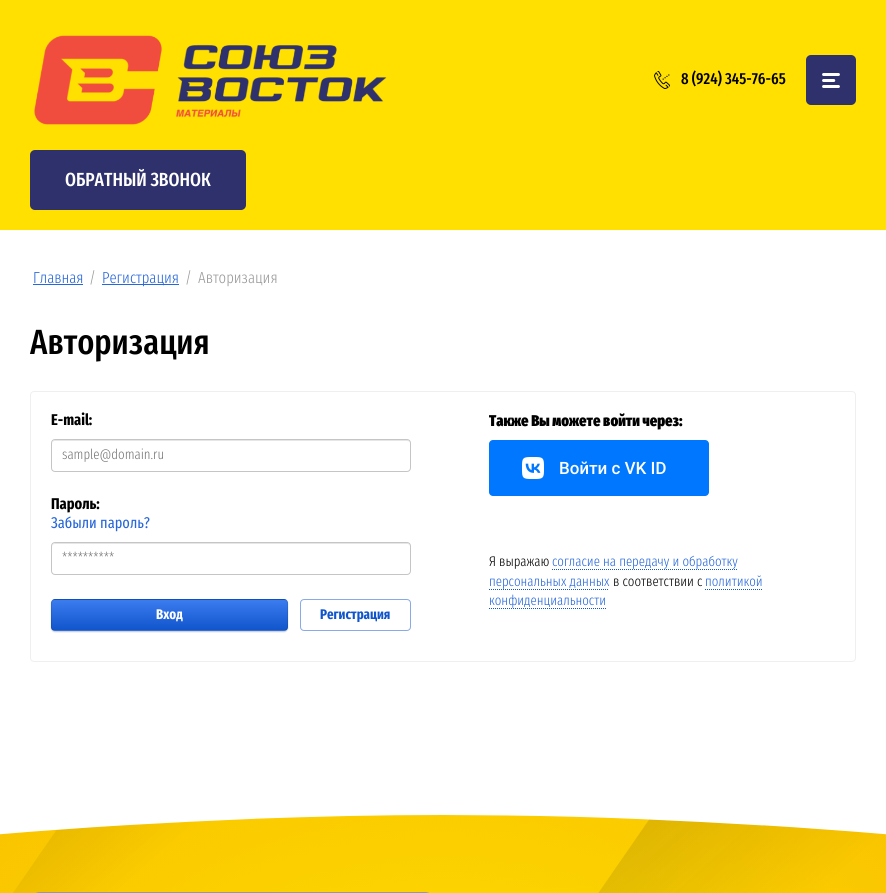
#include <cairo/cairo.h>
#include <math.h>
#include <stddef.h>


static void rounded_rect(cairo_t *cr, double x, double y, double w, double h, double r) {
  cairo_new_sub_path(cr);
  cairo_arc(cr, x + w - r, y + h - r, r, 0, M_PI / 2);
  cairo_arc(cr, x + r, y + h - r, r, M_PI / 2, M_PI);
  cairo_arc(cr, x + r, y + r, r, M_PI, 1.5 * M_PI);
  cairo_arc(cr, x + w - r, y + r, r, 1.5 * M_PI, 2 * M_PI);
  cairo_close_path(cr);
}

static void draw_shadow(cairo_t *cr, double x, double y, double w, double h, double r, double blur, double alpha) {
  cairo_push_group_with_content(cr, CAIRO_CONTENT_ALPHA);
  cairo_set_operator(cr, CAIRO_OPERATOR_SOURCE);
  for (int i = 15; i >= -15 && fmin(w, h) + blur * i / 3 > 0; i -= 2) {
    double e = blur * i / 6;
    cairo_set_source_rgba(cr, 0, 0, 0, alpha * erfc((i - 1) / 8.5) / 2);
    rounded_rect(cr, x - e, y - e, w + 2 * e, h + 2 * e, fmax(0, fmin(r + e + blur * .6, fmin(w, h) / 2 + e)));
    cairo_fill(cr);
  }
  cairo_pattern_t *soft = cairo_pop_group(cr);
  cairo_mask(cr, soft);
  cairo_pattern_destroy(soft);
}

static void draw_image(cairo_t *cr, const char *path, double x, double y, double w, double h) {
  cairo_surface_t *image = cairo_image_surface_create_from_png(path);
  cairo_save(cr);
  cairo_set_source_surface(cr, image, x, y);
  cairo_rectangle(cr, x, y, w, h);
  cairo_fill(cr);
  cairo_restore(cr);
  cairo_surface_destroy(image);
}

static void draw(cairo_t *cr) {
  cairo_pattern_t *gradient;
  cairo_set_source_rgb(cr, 1, 1, 1);
  cairo_paint(cr);
  cairo_set_source_rgb(cr, 1, 224 / 255.0, 0);
  cairo_rectangle(cr, 0, 0, 886, 230);
  cairo_fill(cr);
  draw_image(cr, "images/1.png", 34, 35, 353, 90);
  draw_image(cr, "images/2.png", 654, 71, 16, 18);
  cairo_set_source_rgb(cr, 46 / 255.0, 49 / 255.0, 107 / 255.0);
  rounded_rect(cr, 806, 55, 50, 50, 5);
  cairo_fill(cr);
  draw_image(cr, "images/3.png", 822, 73, 18, 15);
  rounded_rect(cr, 30, 150, 216, 60, 5);
  cairo_fill(cr);
  cairo_set_source_rgb(cr, 39 / 255.0, 103 / 255.0, 217 / 255.0);
  cairo_rectangle(cr, 33, 284, 50, 1);
  cairo_fill(cr);
  cairo_rectangle(cr, 102, 284, 77, 1);
  cairo_fill(cr);
  rounded_rect(cr, 30.5, 391.5, 825, 270, 3.5);
  cairo_set_source_rgb(cr, 239 / 255.0, 239 / 255.0, 239 / 255.0);
  cairo_set_line_width(cr, 1);
  cairo_stroke(cr);
  cairo_set_source_rgb(cr, 230 / 255.0, 230 / 255.0, 230 / 255.0);
  cairo_new_path(cr);
  cairo_move_to(cr, 55, 441);
  cairo_line_to(cr, 407, 441);
  cairo_curve_to(cr, 409, 441, 410, 442, 410, 444);
  cairo_curve_to(cr, 410, 442, 409, 440, 407, 440);
  cairo_line_to(cr, 55, 440);
  cairo_line_to(cr, 53, 441);
  cairo_line_to(cr, 52, 444);
  cairo_curve_to(cr, 52, 442, 53, 441, 55, 441);
  cairo_close_path(cr);
  cairo_fill(cr);
  rounded_rect(cr, 51.5, 439.5, 359, 32, 3.5);
  cairo_set_source_rgb(cr, 197 / 255.0, 197 / 255.0, 197 / 255.0);
  cairo_stroke(cr);
  cairo_set_source_rgb(cr, 230 / 255.0, 230 / 255.0, 230 / 255.0);
  cairo_new_path(cr);
  cairo_move_to(cr, 55, 544);
  cairo_line_to(cr, 407, 544);
  cairo_curve_to(cr, 409, 544, 410, 545, 410, 547);
  cairo_curve_to(cr, 410, 545, 409, 543, 407, 543);
  cairo_line_to(cr, 55, 543);
  cairo_line_to(cr, 53, 544);
  cairo_line_to(cr, 52, 547);
  cairo_curve_to(cr, 52, 545, 53, 544, 55, 544);
  cairo_close_path(cr);
  cairo_fill(cr);
  rounded_rect(cr, 51.5, 542.5, 359, 32, 3.5);
  cairo_set_source_rgb(cr, 197 / 255.0, 197 / 255.0, 197 / 255.0);
  cairo_stroke(cr);
  cairo_set_source_rgb(cr, 0, 0, 0);
  draw_shadow(cr, 51, 600, 237, 32, 4, 0.5, 0.2);
  cairo_save(cr);
  rounded_rect(cr, 51, 599, 237, 32, 4);
  cairo_clip(cr);
  gradient = cairo_pattern_create_linear(170, 570, 170, 600);
  cairo_pattern_add_color_stop_rgba(gradient, 0, 59 / 255.0, 124 / 255.0, 239 / 255.0, 1);
  cairo_pattern_add_color_stop_rgba(gradient, 1, 17 / 255.0, 85 / 255.0, 204 / 255.0, 1);
  cairo_set_source(cr, gradient);
  cairo_pattern_destroy(gradient);
  cairo_rectangle(cr, 51, 599, 237, 1);
  cairo_fill(cr);
  gradient = cairo_pattern_create_linear(170, 600, 170, 630);
  cairo_pattern_add_color_stop_rgba(gradient, 0, 59 / 255.0, 124 / 255.0, 239 / 255.0, 1);
  cairo_pattern_add_color_stop_rgba(gradient, 1, 17 / 255.0, 85 / 255.0, 204 / 255.0, 1);
  cairo_set_source(cr, gradient);
  cairo_pattern_destroy(gradient);
  cairo_rectangle(cr, 51, 600, 237, 30);
  cairo_fill(cr);
  gradient = cairo_pattern_create_linear(170, 630, 170, 660);
  cairo_pattern_add_color_stop_rgba(gradient, 0, 59 / 255.0, 124 / 255.0, 239 / 255.0, 1);
  cairo_pattern_add_color_stop_rgba(gradient, 1, 17 / 255.0, 85 / 255.0, 204 / 255.0, 1);
  cairo_set_source(cr, gradient);
  cairo_pattern_destroy(gradient);
  cairo_rectangle(cr, 51, 630, 237, 1);
  cairo_fill(cr);
  cairo_restore(cr);
  rounded_rect(cr, 51.5, 599.5, 236, 31, 3.5);
  cairo_set_source_rgba(cr, 0, 0, 0, 0.1);
  cairo_stroke(cr);
  rounded_rect(cr, 300.5, 599.5, 110, 31, 3.5);
  cairo_set_source_rgb(cr, 136 / 255.0, 170 / 255.0, 230 / 255.0);
  cairo_stroke(cr);
  cairo_set_source_rgb(cr, 0, 119 / 255.0, 1);
  rounded_rect(cr, 489, 440, 220, 56, 4);
  cairo_fill(cr);
  draw_image(cr, "images/4.png", 522, 457, 144, 22);
  cairo_new_path(cr);
  cairo_move_to(cr, 552, 569.5);
  cairo_line_to(cr, 738, 569.5);
  cairo_set_source_rgb(cr, 17 / 255.0, 85 / 255.0, 204 / 255.0);
  cairo_set_dash(cr, (double[]){1, 1}, 2, 0);
  cairo_stroke(cr);
  cairo_new_path(cr);
  cairo_move_to(cr, 489, 589.5);
  cairo_line_to(cr, 609, 589.5);
  cairo_stroke(cr);
  cairo_new_path(cr);
  cairo_move_to(cr, 705, 589.5);
  cairo_line_to(cr, 763, 589.5);
  cairo_stroke(cr);
  cairo_new_path(cr);
  cairo_move_to(cr, 489, 608.5);
  cairo_line_to(cr, 606, 608.5);
  cairo_stroke(cr);
  draw_image(cr, "images/5.png", 0, 815, 886, 78);
  cairo_set_source_rgb(cr, 151 / 255.0, 151 / 255.0, 151 / 255.0);
  rounded_rect(cr, 30, 892, 405, 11, 10);
  cairo_fill(cr);
  cairo_select_font_face(cr, "Fira Sans Extra Condensed Medium", CAIRO_FONT_SLANT_NORMAL, CAIRO_FONT_WEIGHT_NORMAL);
  cairo_set_font_size(cr, 16);
  cairo_set_source_rgb(cr, 0, 0, 0);
  cairo_move_to(cr, 681, 84);
  cairo_show_text(cr, "8 (924) 345-76-65");
  cairo_set_font_size(cr, 19);
  cairo_set_source_rgb(cr, 1, 1, 1);
  cairo_move_to(cr, 65, 186);
  cairo_show_text(cr, "ОБРАТНЫЙ ЗВОНОК");
  cairo_select_font_face(cr, "Fira Sans Extra Condensed Light", CAIRO_FONT_SLANT_NORMAL, CAIRO_FONT_WEIGHT_NORMAL);
  cairo_set_font_size(cr, 16);
  cairo_set_source_rgb(cr, 39 / 255.0, 103 / 255.0, 217 / 255.0);
  cairo_move_to(cr, 33, 283);
  cairo_show_text(cr, "Главная");
  cairo_set_source_rgb(cr, 153 / 255.0, 153 / 255.0, 153 / 255.0);
  cairo_move_to(cr, 89, 283);
  cairo_show_text(cr, "/");
  cairo_set_source_rgb(cr, 39 / 255.0, 103 / 255.0, 217 / 255.0);
  cairo_move_to(cr, 102, 283);
  cairo_show_text(cr, "Регистрация");
  cairo_set_source_rgb(cr, 153 / 255.0, 153 / 255.0, 153 / 255.0);
  cairo_move_to(cr, 185, 283);
  cairo_show_text(cr, "/");
  cairo_move_to(cr, 198, 283);
  cairo_show_text(cr, "Авторизация");
  cairo_select_font_face(cr, "Fira Sans Extra Condensed Medium", CAIRO_FONT_SLANT_NORMAL, CAIRO_FONT_WEIGHT_NORMAL);
  cairo_set_font_size(cr, 35);
  cairo_set_source_rgb(cr, 0, 0, 0);
  cairo_move_to(cr, 30, 354);
  cairo_show_text(cr, "Авторизация");
  cairo_select_font_face(cr, "Fira Sans Extra Condensed", CAIRO_FONT_SLANT_NORMAL, CAIRO_FONT_WEIGHT_BOLD);
  cairo_set_font_size(cr, 15.6);
  cairo_move_to(cr, 51, 425);
  cairo_show_text(cr, "E-mail:");
  cairo_select_font_face(cr, "Fira Sans Extra Condensed Light", CAIRO_FONT_SLANT_NORMAL, CAIRO_FONT_WEIGHT_NORMAL);
  cairo_set_font_size(cr, 14);
  cairo_set_source_rgb(cr, 117 / 255.0, 117 / 255.0, 117 / 255.0);
  cairo_move_to(cr, 62, 459);
  cairo_show_text(cr, "sample@domain.ru");
  cairo_select_font_face(cr, "Fira Sans Extra Condensed", CAIRO_FONT_SLANT_NORMAL, CAIRO_FONT_WEIGHT_BOLD);
  cairo_set_font_size(cr, 15.6);
  cairo_set_source_rgb(cr, 0, 0, 0);
  cairo_move_to(cr, 51, 509);
  cairo_show_text(cr, "Пароль:");
  cairo_select_font_face(cr, "Fira Sans Extra Condensed", CAIRO_FONT_SLANT_NORMAL, CAIRO_FONT_WEIGHT_NORMAL);
  cairo_set_source_rgb(cr, 39 / 255.0, 103 / 255.0, 217 / 255.0);
  cairo_move_to(cr, 51, 528);
  cairo_show_text(cr, "Забыли пароль?");
  cairo_select_font_face(cr, "Fira Sans Extra Condensed Light", CAIRO_FONT_SLANT_NORMAL, CAIRO_FONT_WEIGHT_NORMAL);
  cairo_set_font_size(cr, 14);
  cairo_set_source_rgb(cr, 117 / 255.0, 117 / 255.0, 117 / 255.0);
  cairo_move_to(cr, 62, 562);
  cairo_show_text(cr, "**********");
  cairo_select_font_face(cr, "Fira Sans Extra Condensed", CAIRO_FONT_SLANT_NORMAL, CAIRO_FONT_WEIGHT_BOLD);
  cairo_set_source_rgb(cr, 1, 1, 1);
  cairo_move_to(cr, 156, 619);
  cairo_show_text(cr, "Вход");
  cairo_set_source_rgb(cr, 17 / 255.0, 85 / 255.0, 204 / 255.0);
  cairo_move_to(cr, 320, 619);
  cairo_show_text(cr, "Регистрация");
  cairo_select_font_face(cr, "Fira Sans Extra Condensed Black", CAIRO_FONT_SLANT_NORMAL, CAIRO_FONT_WEIGHT_NORMAL);
  cairo_set_font_size(cr, 15.6);
  cairo_set_source_rgb(cr, 0, 0, 0);
  cairo_move_to(cr, 489, 426);
  cairo_show_text(cr, "Также Вы можете войти через:");
  cairo_select_font_face(cr, "Fira Sans Extra Condensed Light", CAIRO_FONT_SLANT_NORMAL, CAIRO_FONT_WEIGHT_NORMAL);
  cairo_set_font_size(cr, 14);
  cairo_move_to(cr, 489, 566);
  cairo_show_text(cr, "Я выражаю");
  cairo_set_source_rgb(cr, 39 / 255.0, 103 / 255.0, 217 / 255.0);
  cairo_move_to(cr, 552, 566);
  cairo_show_text(cr, "согласие на передачу и обработку");
  cairo_move_to(cr, 489, 586);
  cairo_show_text(cr, "персональных данных");
  cairo_set_source_rgb(cr, 0, 0, 0);
  cairo_move_to(cr, 613, 586);
  cairo_show_text(cr, "в соответствии с");
  cairo_set_source_rgb(cr, 39 / 255.0, 103 / 255.0, 217 / 255.0);
  cairo_move_to(cr, 705, 586);
  cairo_show_text(cr, "политикой");
  cairo_move_to(cr, 489, 605);
  cairo_show_text(cr, "конфиденциальности");
}

int main(void) {
  cairo_surface_t *surface = cairo_image_surface_create(CAIRO_FORMAT_RGB24, 886, 893);
  cairo_t *cr = cairo_create(surface);
  cairo_font_options_t *options = cairo_font_options_create();
  cairo_font_options_set_hint_metrics(options, CAIRO_HINT_METRICS_OFF);
  cairo_font_options_set_hint_style(options, CAIRO_HINT_STYLE_NONE);
  cairo_set_font_options(cr, options);
  cairo_set_miter_limit(cr, 4);
  draw(cr);
  cairo_surface_write_to_png(surface, "out.png");
  cairo_font_options_destroy(options);
  cairo_destroy(cr);
  cairo_surface_destroy(surface);
  return 0;
}
